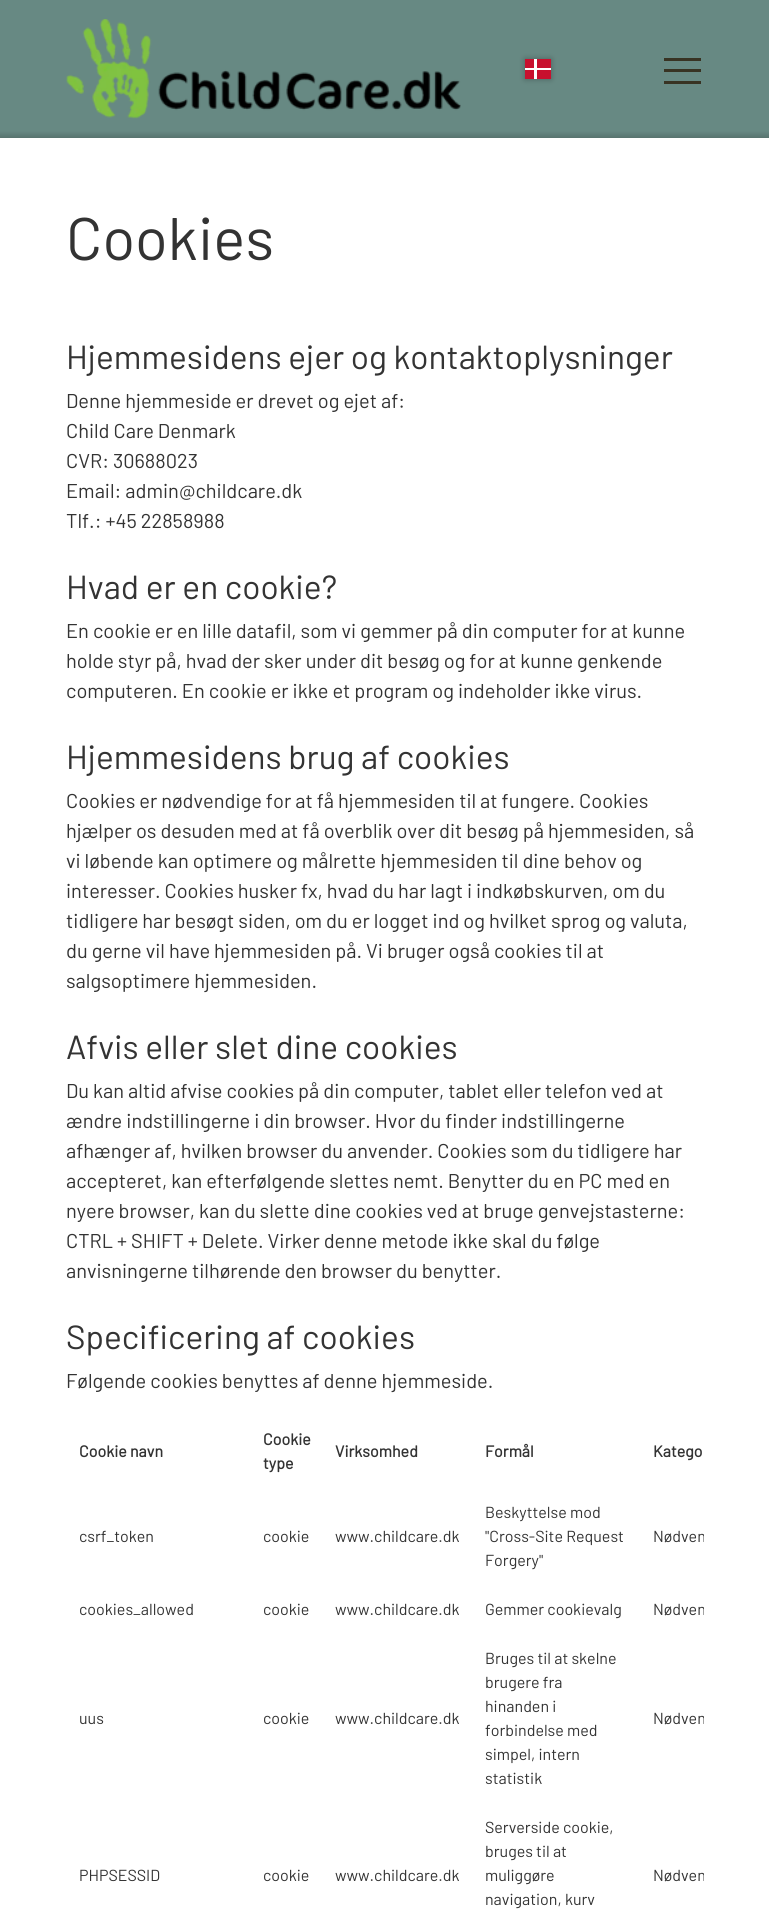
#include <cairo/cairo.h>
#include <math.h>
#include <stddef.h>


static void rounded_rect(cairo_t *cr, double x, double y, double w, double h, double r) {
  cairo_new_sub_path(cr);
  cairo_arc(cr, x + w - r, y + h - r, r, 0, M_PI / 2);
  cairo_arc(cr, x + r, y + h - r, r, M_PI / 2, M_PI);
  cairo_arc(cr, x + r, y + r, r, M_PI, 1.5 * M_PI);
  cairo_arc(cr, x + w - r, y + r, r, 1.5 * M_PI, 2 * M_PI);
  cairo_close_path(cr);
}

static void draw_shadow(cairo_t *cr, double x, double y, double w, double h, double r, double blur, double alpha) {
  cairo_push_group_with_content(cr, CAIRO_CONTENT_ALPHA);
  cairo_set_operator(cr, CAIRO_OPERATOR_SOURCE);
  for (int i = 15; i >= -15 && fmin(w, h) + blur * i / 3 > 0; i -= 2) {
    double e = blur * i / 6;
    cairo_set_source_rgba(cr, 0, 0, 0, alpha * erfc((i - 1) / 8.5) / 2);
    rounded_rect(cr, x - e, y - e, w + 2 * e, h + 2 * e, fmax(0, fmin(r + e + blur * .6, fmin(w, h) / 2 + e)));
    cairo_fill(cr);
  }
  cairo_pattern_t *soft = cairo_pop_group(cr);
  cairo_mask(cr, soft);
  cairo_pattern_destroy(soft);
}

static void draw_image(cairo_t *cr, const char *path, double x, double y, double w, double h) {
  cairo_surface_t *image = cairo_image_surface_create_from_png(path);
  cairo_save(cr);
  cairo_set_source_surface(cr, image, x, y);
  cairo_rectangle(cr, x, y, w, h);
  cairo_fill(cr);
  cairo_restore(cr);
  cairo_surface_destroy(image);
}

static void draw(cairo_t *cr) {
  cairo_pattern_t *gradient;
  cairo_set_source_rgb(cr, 1, 1, 1);
  cairo_paint(cr);
  cairo_set_source_rgb(cr, 103 / 255.0, 137 / 255.0, 131 / 255.0);
  cairo_rectangle(cr, 0, 0, 769, 131);
  cairo_fill(cr);
  draw_image(cr, "images/1.png", 66, 19, 395, 100);
  cairo_set_source_rgb(cr, 0, 0, 0);
  draw_shadow(cr, 525, 59, 26, 20, 0, 3, 0.3);
  cairo_set_source_rgb(cr, 200 / 255.0, 16 / 255.0, 46 / 255.0);
  cairo_rectangle(cr, 525, 59, 26, 20);
  cairo_fill(cr);
  cairo_set_source_rgb(cr, 1, 1, 1);
  cairo_rectangle(cr, 534, 59, 3, 20);
  cairo_fill(cr);
  cairo_rectangle(cr, 525, 68, 26, 2);
  cairo_fill(cr);
  cairo_set_source_rgb(cr, 56 / 255.0, 51 / 255.0, 35 / 255.0);
  cairo_rectangle(cr, 664, 58, 37, 3);
  cairo_fill(cr);
  cairo_rectangle(cr, 664, 69, 37, 3);
  cairo_fill(cr);
  cairo_rectangle(cr, 664, 81, 37, 3);
  cairo_fill(cr);
  gradient = cairo_pattern_create_linear(385, 138, 385, 131);
  cairo_pattern_add_color_stop_rgba(gradient, 0, 88 / 255.0, 116 / 255.0, 111 / 255.0, 1);
  cairo_pattern_add_color_stop_rgba(gradient, 1, 103 / 255.0, 137 / 255.0, 131 / 255.0, 1);
  cairo_set_source(cr, gradient);
  cairo_pattern_destroy(gradient);
  cairo_rectangle(cr, 0, 131, 769, 7);
  cairo_fill(cr);
  cairo_select_font_face(cr, "Barlow", CAIRO_FONT_SLANT_NORMAL, CAIRO_FONT_WEIGHT_NORMAL);
  cairo_set_font_size(cr, 60);
  cairo_set_source_rgb(cr, 51 / 255.0, 51 / 255.0, 51 / 255.0);
  cairo_move_to(cr, 66, 260);
  cairo_show_text(cr, "Cookies");
  cairo_set_font_size(cr, 33.4);
  cairo_move_to(cr, 66, 369);
  cairo_show_text(cr, "Hjemmesidens ejer og kontaktoplysninger");
  cairo_set_font_size(cr, 20);
  cairo_move_to(cr, 66, 408);
  cairo_show_text(cr, "Denne hjemmeside er drevet og ejet af:");
  cairo_move_to(cr, 66, 438);
  cairo_show_text(cr, "Child Care Denmark");
  cairo_move_to(cr, 66, 468);
  cairo_show_text(cr, "CVR: 30688023");
  cairo_move_to(cr, 66, 498);
  cairo_show_text(cr, "Email: admin@childcare.dk");
  cairo_move_to(cr, 66, 528);
  cairo_show_text(cr, "Tlf.: +45 22858988");
  cairo_set_font_size(cr, 33.4);
  cairo_move_to(cr, 66, 599);
  cairo_show_text(cr, "Hvad er en cookie?");
  cairo_set_font_size(cr, 20);
  cairo_move_to(cr, 66, 638);
  cairo_show_text(cr, "En cookie er en lille datafil, som vi gemmer på din computer for at kunne");
  cairo_move_to(cr, 66, 668);
  cairo_show_text(cr, "holde styr på, hvad der sker under dit besøg og for at kunne genkende");
  cairo_move_to(cr, 66, 698);
  cairo_show_text(cr, "computeren. En cookie er ikke et program og indeholder ikke virus.");
  cairo_set_font_size(cr, 33.4);
  cairo_move_to(cr, 66, 769);
  cairo_show_text(cr, "Hjemmesidens brug af cookies");
  cairo_set_font_size(cr, 20);
  cairo_move_to(cr, 66, 808);
  cairo_show_text(cr, "Cookies er nødvendige for at få hjemmesiden til at fungere. Cookies");
  cairo_move_to(cr, 66, 838);
  cairo_show_text(cr, "hjælper os desuden med at få overblik over dit besøg på hjemmesiden, så");
  cairo_move_to(cr, 66, 868);
  cairo_show_text(cr, "vi løbende kan optimere og målrette hjemmesiden til dine behov og");
  cairo_move_to(cr, 66, 898);
  cairo_show_text(cr, "interesser. Cookies husker fx, hvad du har lagt i indkøbskurven, om du");
  cairo_move_to(cr, 66, 928);
  cairo_show_text(cr, "tidligere har besøgt siden, om du er logget ind og hvilket sprog og valuta,");
  cairo_move_to(cr, 66, 958);
  cairo_show_text(cr, "du gerne vil have hjemmesiden på. Vi bruger også cookies til at");
  cairo_move_to(cr, 66, 988);
  cairo_show_text(cr, "salgsoptimere hjemmesiden.");
  cairo_set_font_size(cr, 33.4);
  cairo_move_to(cr, 66, 1059);
  cairo_show_text(cr, "Afvis eller slet dine cookies");
  cairo_set_font_size(cr, 20);
  cairo_move_to(cr, 66, 1098);
  cairo_show_text(cr, "Du kan altid afvise cookies på din computer, tablet eller telefon ved at");
  cairo_move_to(cr, 66, 1128);
  cairo_show_text(cr, "ændre indstillingerne i din browser. Hvor du finder indstillingerne");
  cairo_move_to(cr, 66, 1158);
  cairo_show_text(cr, "afhænger af, hvilken browser du anvender. Cookies som du tidligere har");
  cairo_move_to(cr, 66, 1188);
  cairo_show_text(cr, "accepteret, kan efterfølgende slettes nemt. Benytter du en PC med en");
  cairo_move_to(cr, 66, 1218);
  cairo_show_text(cr, "nyere browser, kan du slette dine cookies ved at bruge genvejstasterne:");
  cairo_move_to(cr, 66, 1248);
  cairo_show_text(cr, "CTRL + SHIFT + Delete. Virker denne metode ikke skal du følge");
  cairo_move_to(cr, 66, 1278);
  cairo_show_text(cr, "anvisningerne tilhørende den browser du benytter.");
  cairo_set_font_size(cr, 33.4);
  cairo_move_to(cr, 66, 1349);
  cairo_show_text(cr, "Specificering af cookies");
  cairo_set_font_size(cr, 20);
  cairo_move_to(cr, 66, 1388);
  cairo_show_text(cr, "Følgende cookies benyttes af denne hjemmeside.");
  cairo_select_font_face(cr, "Barlow", CAIRO_FONT_SLANT_NORMAL, CAIRO_FONT_WEIGHT_BOLD);
  cairo_set_font_size(cr, 16);
  cairo_move_to(cr, 79, 1457);
  cairo_show_text(cr, "Cookie navn");
  cairo_move_to(cr, 263, 1445);
  cairo_show_text(cr, "Cookie");
  cairo_move_to(cr, 263, 1469);
  cairo_show_text(cr, "type");
  cairo_move_to(cr, 335, 1457);
  cairo_show_text(cr, "Virksomhed");
  cairo_move_to(cr, 485, 1457);
  cairo_show_text(cr, "Formål");
  cairo_move_to(cr, 653, 1457);
  cairo_show_text(cr, "Katego");
  cairo_select_font_face(cr, "Barlow", CAIRO_FONT_SLANT_NORMAL, CAIRO_FONT_WEIGHT_NORMAL);
  cairo_move_to(cr, 79, 1542);
  cairo_show_text(cr, "csrf_token");
  cairo_move_to(cr, 263, 1542);
  cairo_show_text(cr, "cookie");
  cairo_move_to(cr, 335, 1542);
  cairo_show_text(cr, "www.childcare.dk");
  cairo_move_to(cr, 485, 1518);
  cairo_show_text(cr, "Beskyttelse mod");
  cairo_move_to(cr, 485, 1542);
  cairo_show_text(cr, "\"Cross-Site Request");
  cairo_move_to(cr, 485, 1566);
  cairo_show_text(cr, "Forgery\"");
  cairo_save(cr);
  cairo_rectangle(cr, 66, 1415, 638, 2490);
  cairo_clip(cr);
  cairo_move_to(cr, 653, 1542);
  cairo_show_text(cr, "Nødven");
  cairo_restore(cr);
  cairo_move_to(cr, 79, 1615);
  cairo_show_text(cr, "cookies_allowed");
  cairo_move_to(cr, 263, 1615);
  cairo_show_text(cr, "cookie");
  cairo_move_to(cr, 335, 1615);
  cairo_show_text(cr, "www.childcare.dk");
  cairo_move_to(cr, 485, 1615);
  cairo_show_text(cr, "Gemmer cookievalg");
  cairo_save(cr);
  cairo_rectangle(cr, 66, 1415, 638, 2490);
  cairo_clip(cr);
  cairo_move_to(cr, 653, 1615);
  cairo_show_text(cr, "Nødven");
  cairo_restore(cr);
  cairo_move_to(cr, 79, 1724);
  cairo_show_text(cr, "uus");
  cairo_move_to(cr, 263, 1724);
  cairo_show_text(cr, "cookie");
  cairo_move_to(cr, 335, 1724);
  cairo_show_text(cr, "www.childcare.dk");
  cairo_move_to(cr, 485, 1664);
  cairo_show_text(cr, "Bruges til at skelne");
  cairo_move_to(cr, 485, 1688);
  cairo_show_text(cr, "brugere fra");
  cairo_move_to(cr, 485, 1712);
  cairo_show_text(cr, "hinanden i");
  cairo_move_to(cr, 485, 1736);
  cairo_show_text(cr, "forbindelse med");
  cairo_move_to(cr, 485, 1760);
  cairo_show_text(cr, "simpel, intern");
  cairo_move_to(cr, 485, 1784);
  cairo_show_text(cr, "statistik");
  cairo_save(cr);
  cairo_rectangle(cr, 66, 1415, 638, 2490);
  cairo_clip(cr);
  cairo_move_to(cr, 653, 1724);
  cairo_show_text(cr, "Nødven");
  cairo_restore(cr);
  cairo_move_to(cr, 79, 1881);
  cairo_show_text(cr, "PHPSESSID");
  cairo_move_to(cr, 263, 1881);
  cairo_show_text(cr, "cookie");
  cairo_move_to(cr, 335, 1881);
  cairo_show_text(cr, "www.childcare.dk");
  cairo_move_to(cr, 485, 1833);
  cairo_show_text(cr, "Serverside cookie,");
  cairo_move_to(cr, 485, 1857);
  cairo_show_text(cr, "bruges til at");
  cairo_move_to(cr, 485, 1881);
  cairo_show_text(cr, "muliggøre");
  cairo_move_to(cr, 485, 1905);
  cairo_show_text(cr, "navigation, kurv");
  cairo_save(cr);
  cairo_rectangle(cr, 66, 1415, 638, 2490);
  cairo_clip(cr);
  cairo_move_to(cr, 653, 1881);
  cairo_show_text(cr, "Nødven");
  cairo_restore(cr);
}

int main(void) {
  cairo_surface_t *surface = cairo_image_surface_create(CAIRO_FORMAT_RGB24, 769, 1915);
  cairo_t *cr = cairo_create(surface);
  cairo_font_options_t *options = cairo_font_options_create();
  cairo_font_options_set_hint_metrics(options, CAIRO_HINT_METRICS_OFF);
  cairo_font_options_set_hint_style(options, CAIRO_HINT_STYLE_NONE);
  cairo_set_font_options(cr, options);
  cairo_set_miter_limit(cr, 4);
  draw(cr);
  cairo_surface_write_to_png(surface, "out.png");
  cairo_font_options_destroy(options);
  cairo_destroy(cr);
  cairo_surface_destroy(surface);
  return 0;
}
